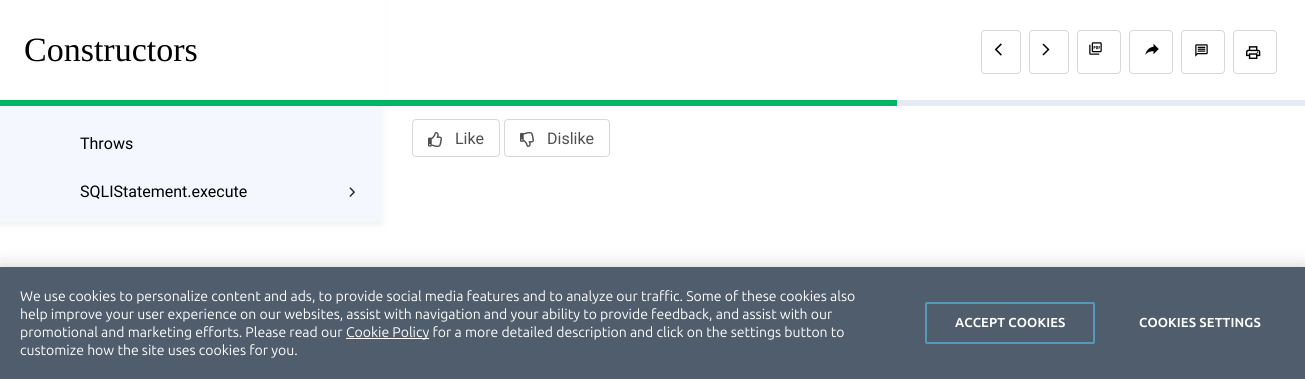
#include <cairo/cairo.h>
#include <math.h>
#include <stddef.h>


static void draw_spaced(cairo_t *cr, double x, double y, const char *s, double letter, double word) {
  cairo_move_to(cr, x, y);
  while (*s) {
    char ch[5] = {0};
    int n = 0;
    do ch[n++] = *s++; while ((*s & 0xC0) == 0x80);
    cairo_show_text(cr, ch);
    cairo_rel_move_to(cr, letter + word * (*ch == ' '), 0);
  }
}

static void rounded_rect(cairo_t *cr, double x, double y, double w, double h, double r) {
  cairo_new_sub_path(cr);
  cairo_arc(cr, x + w - r, y + h - r, r, 0, M_PI / 2);
  cairo_arc(cr, x + r, y + h - r, r, M_PI / 2, M_PI);
  cairo_arc(cr, x + r, y + r, r, M_PI, 1.5 * M_PI);
  cairo_arc(cr, x + w - r, y + r, r, 1.5 * M_PI, 2 * M_PI);
  cairo_close_path(cr);
}

static void draw_shadow(cairo_t *cr, double x, double y, double w, double h, double r, double blur, double alpha) {
  cairo_push_group_with_content(cr, CAIRO_CONTENT_ALPHA);
  cairo_set_operator(cr, CAIRO_OPERATOR_SOURCE);
  for (int i = 15; i >= -15 && fmin(w, h) + blur * i / 3 > 0; i -= 2) {
    double e = blur * i / 6;
    cairo_set_source_rgba(cr, 0, 0, 0, alpha * erfc((i - 1) / 8.5) / 2);
    rounded_rect(cr, x - e, y - e, w + 2 * e, h + 2 * e, fmax(0, fmin(r + e + blur * .6, fmin(w, h) / 2 + e)));
    cairo_fill(cr);
  }
  cairo_pattern_t *soft = cairo_pop_group(cr);
  cairo_mask(cr, soft);
  cairo_pattern_destroy(soft);
}

static void draw_image(cairo_t *cr, const char *path, double x, double y, double w, double h) {
  cairo_surface_t *image = cairo_image_surface_create_from_png(path);
  cairo_save(cr);
  cairo_set_source_surface(cr, image, x, y);
  cairo_rectangle(cr, x, y, w, h);
  cairo_fill(cr);
  cairo_restore(cr);
  cairo_surface_destroy(image);
}

static void draw(cairo_t *cr) {
  cairo_set_source_rgb(cr, 1, 1, 1);
  cairo_paint(cr);
  cairo_set_source_rgb(cr, 181 / 255.0, 183 / 255.0, 179 / 255.0);
  draw_shadow(cr, 0, -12, 381, 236, 0, 4, 0.25);
  cairo_set_source_rgb(cr, 1, 1, 1);
  cairo_rectangle(cr, 0, 0, 385, 100);
  cairo_fill(cr);
  rounded_rect(cr, 981.5, 30.5, 39, 43, 3.5);
  cairo_set_source_rgb(cr, 216 / 255.0, 216 / 255.0, 216 / 255.0);
  cairo_set_line_width(cr, 1);
  cairo_stroke(cr);
  draw_image(cr, "images/1.png", 994, 43, 8, 13);
  rounded_rect(cr, 1029.5, 30.5, 39, 43, 3.5);
  cairo_stroke(cr);
  draw_image(cr, "images/2.png", 1042, 43, 8, 13);
  rounded_rect(cr, 1077.5, 30.5, 43, 43, 3.5);
  cairo_stroke(cr);
  draw_image(cr, "images/3.png", 1089, 42, 13, 13);
  rounded_rect(cr, 1129.5, 30.5, 43, 43, 3.5);
  cairo_stroke(cr);
  draw_image(cr, "images/4.png", 1145, 43, 14, 12);
  rounded_rect(cr, 1181.5, 30.5, 43, 43, 3.5);
  cairo_stroke(cr);
  draw_image(cr, "images/5.png", 1195, 44, 13, 13);
  rounded_rect(cr, 1233.5, 30.5, 43, 43, 3.5);
  cairo_stroke(cr);
  draw_image(cr, "images/6.png", 1246, 46, 15, 13);
  cairo_set_source_rgb(cr, 0, 181 / 255.0, 99 / 255.0);
  cairo_rectangle(cr, 0, 100, 897, 6);
  cairo_fill(cr);
  cairo_set_source_rgb(cr, 231 / 255.0, 234 / 255.0, 244 / 255.0);
  cairo_rectangle(cr, 897, 100, 408, 6);
  cairo_fill(cr);
  cairo_set_source_rgb(cr, 244 / 255.0, 247 / 255.0, 253 / 255.0);
  cairo_rectangle(cr, 0, 106, 381, 116);
  cairo_fill(cr);
  draw_image(cr, "images/7.png", 349, 187, 6, 10);
  rounded_rect(cr, 412.5, 119.5, 87, 37, 3.5);
  cairo_set_source_rgb(cr, 216 / 255.0, 216 / 255.0, 216 / 255.0);
  cairo_stroke(cr);
  draw_image(cr, "images/8.png", 428, 132, 14, 15);
  rounded_rect(cr, 504.5, 119.5, 105, 37, 3.5);
  cairo_stroke(cr);
  draw_image(cr, "images/9.png", 520, 132, 14, 15);
  cairo_set_source_rgb(cr, 0, 0, 0);
  draw_shadow(cr, 0, 267, 1305, 112, 0, 9, 0.2);
  cairo_set_source_rgb(cr, 79 / 255.0, 93 / 255.0, 108 / 255.0);
  cairo_rectangle(cr, 0, 267, 1305, 112);
  cairo_fill(cr);
  cairo_set_source_rgb(cr, 1, 1, 1);
  cairo_rectangle(cr, 346, 338, 83, 1);
  cairo_fill(cr);
  rounded_rect(cr, 926, 303, 168, 40, 1);
  cairo_set_source_rgb(cr, 86 / 255.0, 153 / 255.0, 182 / 255.0);
  cairo_set_line_width(cr, 2);
  cairo_stroke(cr);
  cairo_select_font_face(cr, "Liberation Serif", CAIRO_FONT_SLANT_NORMAL, CAIRO_FONT_WEIGHT_NORMAL);
  cairo_set_font_size(cr, 34);
  cairo_set_source_rgb(cr, 0, 0, 0);
  cairo_move_to(cr, 24, 61);
  cairo_show_text(cr, "Constructors");
  cairo_select_font_face(cr, "Roboto", CAIRO_FONT_SLANT_NORMAL, CAIRO_FONT_WEIGHT_NORMAL);
  cairo_set_font_size(cr, 16);
  cairo_move_to(cr, 80, 149);
  cairo_show_text(cr, "Throws");
  cairo_move_to(cr, 80, 197);
  cairo_show_text(cr, "SQLIStatement.execute");
  cairo_set_source_rgb(cr, 79 / 255.0, 79 / 255.0, 79 / 255.0);
  cairo_move_to(cr, 455, 144);
  cairo_show_text(cr, "Like");
  cairo_move_to(cr, 547, 144);
  cairo_show_text(cr, "Dislike");
  cairo_select_font_face(cr, "Ubuntu", CAIRO_FONT_SLANT_NORMAL, CAIRO_FONT_WEIGHT_NORMAL);
  cairo_set_font_size(cr, 14);
  cairo_set_source_rgb(cr, 1, 1, 1);
  cairo_move_to(cr, 20, 301);
  cairo_show_text(cr, "We use cookies to personalize content and ads, to provide social media features and to analyze our traffic. Some of these cookies also");
  cairo_move_to(cr, 20, 319);
  cairo_show_text(cr, "help improve your user experience on our websites, assist with navigation and your ability to provide feedback, and assist with our");
  cairo_move_to(cr, 20, 337);
  cairo_show_text(cr, "promotional and marketing efforts. Please read our");
  cairo_move_to(cr, 346, 337);
  cairo_show_text(cr, "Cookie Policy for a more detailed description and click on the settings button to");
  cairo_move_to(cr, 20, 355);
  cairo_show_text(cr, "customize how the site uses cookies for you.");
  cairo_select_font_face(cr, "Ubuntu", CAIRO_FONT_SLANT_NORMAL, CAIRO_FONT_WEIGHT_BOLD);
  cairo_set_font_size(cr, 13);
  draw_spaced(cr, 955, 327, "ACCEPT COOKIES", 0.1, 0);
  draw_spaced(cr, 1139, 327, "COOKIES SETTINGS", 0.1, 0);
}

int main(void) {
  cairo_surface_t *surface = cairo_image_surface_create(CAIRO_FORMAT_RGB24, 1305, 379);
  cairo_t *cr = cairo_create(surface);
  cairo_font_options_t *options = cairo_font_options_create();
  cairo_font_options_set_hint_metrics(options, CAIRO_HINT_METRICS_OFF);
  cairo_font_options_set_hint_style(options, CAIRO_HINT_STYLE_NONE);
  cairo_set_font_options(cr, options);
  cairo_set_miter_limit(cr, 4);
  draw(cr);
  cairo_surface_write_to_png(surface, "out.png");
  cairo_font_options_destroy(options);
  cairo_destroy(cr);
  cairo_surface_destroy(surface);
  return 0;
}
